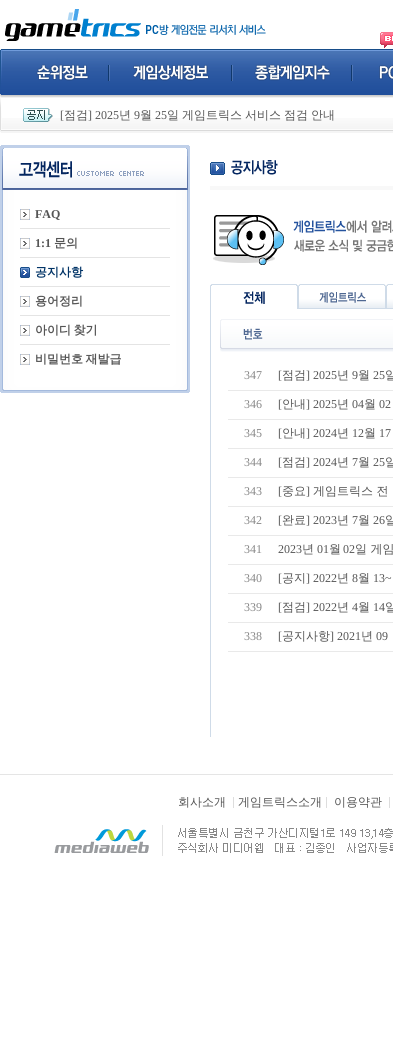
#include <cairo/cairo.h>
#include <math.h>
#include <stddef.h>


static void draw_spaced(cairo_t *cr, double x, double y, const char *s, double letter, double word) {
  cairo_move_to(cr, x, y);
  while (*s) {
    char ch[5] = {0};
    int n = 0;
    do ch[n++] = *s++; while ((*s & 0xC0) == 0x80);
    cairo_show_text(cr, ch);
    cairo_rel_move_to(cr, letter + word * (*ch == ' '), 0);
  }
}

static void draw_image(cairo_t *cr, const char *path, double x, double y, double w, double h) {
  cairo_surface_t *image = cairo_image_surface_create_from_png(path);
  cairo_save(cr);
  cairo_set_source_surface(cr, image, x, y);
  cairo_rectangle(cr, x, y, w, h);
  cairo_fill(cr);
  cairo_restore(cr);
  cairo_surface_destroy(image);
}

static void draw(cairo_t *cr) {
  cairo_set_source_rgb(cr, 1, 1, 1);
  cairo_paint(cr);
  draw_image(cr, "images/1.png", 380, 32, 13, 16);
  draw_image(cr, "images/2.png", 5, 9, 261, 32);
  draw_image(cr, "images/3.png", 3, 49, 390, 49);
  draw_image(cr, "images/4.png", 0, 49, 3, 49);
  draw_image(cr, "images/5.png", 36, 64, 53, 17);
  draw_image(cr, "images/6.png", 108, 65, 2, 16);
  draw_image(cr, "images/7.png", 133, 64, 76, 17);
  draw_image(cr, "images/6.png", 231, 65, 2, 16);
  draw_image(cr, "images/8.png", 254, 64, 77, 17);
  draw_image(cr, "images/6.png", 351, 65, 2, 16);
  draw_image(cr, "images/9.png", 379, 65, 14, 15);
  draw_image(cr, "images/10.png", 2, 118, 391, 15);
  draw_image(cr, "images/11.png", 0, 98, 2, 35);
  draw_image(cr, "images/12.png", 23, 108, 30, 14);
  draw_image(cr, "images/13.png", 0, 145, 190, 45);
  draw_image(cr, "images/14.png", 0, 190, 190, 193);
  draw_image(cr, "images/15.png", 20, 209, 10, 11);
  cairo_set_source_rgb(cr, 228 / 255.0, 228 / 255.0, 228 / 255.0);
  cairo_rectangle(cr, 20, 228, 150, 1);
  cairo_fill(cr);
  draw_image(cr, "images/15.png", 20, 238, 10, 11);
  cairo_rectangle(cr, 20, 257, 150, 1);
  cairo_fill(cr);
  draw_image(cr, "images/16.png", 20, 267, 10, 11);
  cairo_rectangle(cr, 20, 286, 150, 1);
  cairo_fill(cr);
  draw_image(cr, "images/15.png", 20, 296, 10, 11);
  cairo_rectangle(cr, 20, 315, 150, 1);
  cairo_fill(cr);
  draw_image(cr, "images/15.png", 20, 325, 10, 11);
  cairo_rectangle(cr, 20, 344, 150, 1);
  cairo_fill(cr);
  draw_image(cr, "images/15.png", 20, 354, 10, 11);
  draw_image(cr, "images/17.png", 0, 383, 190, 10);
  draw_image(cr, "images/18.png", 210, 162, 15, 13);
  draw_image(cr, "images/19.png", 231, 160, 47, 15);
  cairo_set_source_rgb(cr, 248 / 255.0, 248 / 255.0, 248 / 255.0);
  cairo_rectangle(cr, 210, 186, 183, 4);
  cairo_fill(cr);
  draw_image(cr, "images/20.png", 213, 215, 180, 50);
  draw_image(cr, "images/21.png", 210, 284, 88, 25);
  draw_image(cr, "images/22.png", 298, 284, 88, 25);
  draw_image(cr, "images/23.png", 386, 284, 7, 25);
  cairo_set_source_rgb(cr, 207 / 255.0, 219 / 255.0, 232 / 255.0);
  cairo_rectangle(cr, 210, 309, 1, 428);
  cairo_fill(cr);
  draw_image(cr, "images/24.png", 220, 319, 8, 33);
  draw_image(cr, "images/25.png", 228, 319, 165, 33);
  draw_image(cr, "images/26.png", 243, 328, 20, 12);
  cairo_set_source_rgb(cr, 233 / 255.0, 233 / 255.0, 233 / 255.0);
  cairo_rectangle(cr, 228, 390, 165, 1);
  cairo_fill(cr);
  cairo_rectangle(cr, 228, 419, 165, 1);
  cairo_fill(cr);
  cairo_rectangle(cr, 228, 448, 165, 1);
  cairo_fill(cr);
  cairo_rectangle(cr, 228, 477, 165, 1);
  cairo_fill(cr);
  cairo_rectangle(cr, 228, 506, 165, 1);
  cairo_fill(cr);
  cairo_rectangle(cr, 228, 535, 165, 1);
  cairo_fill(cr);
  cairo_rectangle(cr, 228, 564, 165, 1);
  cairo_fill(cr);
  cairo_rectangle(cr, 228, 593, 165, 1);
  cairo_fill(cr);
  cairo_rectangle(cr, 228, 622, 165, 1);
  cairo_fill(cr);
  cairo_rectangle(cr, 228, 651, 165, 1);
  cairo_fill(cr);
  cairo_set_source_rgb(cr, 229 / 255.0, 229 / 255.0, 229 / 255.0);
  cairo_rectangle(cr, 0, 774, 393, 1);
  cairo_fill(cr);
  cairo_set_source_rgb(cr, 221 / 255.0, 221 / 255.0, 221 / 255.0);
  cairo_rectangle(cr, 233, 797, 1, 11);
  cairo_fill(cr);
  cairo_rectangle(cr, 326, 797, 1, 11);
  cairo_fill(cr);
  cairo_rectangle(cr, 389, 797, 1, 11);
  cairo_fill(cr);
  draw_image(cr, "images/27.png", 54, 829, 95, 24);
  draw_image(cr, "images/28.png", 162, 825, 231, 31);
  cairo_select_font_face(cr, "Liberation Serif", CAIRO_FONT_SLANT_NORMAL, CAIRO_FONT_WEIGHT_NORMAL);
  cairo_set_font_size(cr, 12);
  cairo_set_source_rgb(cr, 85 / 255.0, 85 / 255.0, 85 / 255.0);
  cairo_move_to(cr, 60, 119);
  cairo_show_text(cr, "[");
  cairo_select_font_face(cr, "WenQuanYi Zen Hei Medium", CAIRO_FONT_SLANT_NORMAL, CAIRO_FONT_WEIGHT_NORMAL);
  cairo_move_to(cr, 64, 119);
  cairo_show_text(cr, "점검");
  cairo_select_font_face(cr, "Liberation Serif", CAIRO_FONT_SLANT_NORMAL, CAIRO_FONT_WEIGHT_NORMAL);
  cairo_move_to(cr, 88, 119);
  cairo_show_text(cr, "] 2025");
  cairo_select_font_face(cr, "WenQuanYi Zen Hei Medium", CAIRO_FONT_SLANT_NORMAL, CAIRO_FONT_WEIGHT_NORMAL);
  cairo_move_to(cr, 119, 119);
  cairo_show_text(cr, "년");
  cairo_select_font_face(cr, "Liberation Serif", CAIRO_FONT_SLANT_NORMAL, CAIRO_FONT_WEIGHT_NORMAL);
  cairo_move_to(cr, 134, 119);
  cairo_show_text(cr, "9");
  cairo_select_font_face(cr, "WenQuanYi Zen Hei Medium", CAIRO_FONT_SLANT_NORMAL, CAIRO_FONT_WEIGHT_NORMAL);
  cairo_move_to(cr, 140, 119);
  cairo_show_text(cr, "월");
  cairo_select_font_face(cr, "Liberation Serif", CAIRO_FONT_SLANT_NORMAL, CAIRO_FONT_WEIGHT_NORMAL);
  cairo_move_to(cr, 155, 119);
  cairo_show_text(cr, "25");
  cairo_select_font_face(cr, "WenQuanYi Zen Hei Medium", CAIRO_FONT_SLANT_NORMAL, CAIRO_FONT_WEIGHT_NORMAL);
  cairo_move_to(cr, 167, 119);
  cairo_show_text(cr, "일");
  cairo_move_to(cr, 182, 119);
  cairo_show_text(cr, "게임트릭스");
  cairo_move_to(cr, 245, 119);
  cairo_show_text(cr, "서비스");
  cairo_move_to(cr, 284, 119);
  cairo_show_text(cr, "점검");
  cairo_move_to(cr, 311, 119);
  cairo_show_text(cr, "안내");
  cairo_select_font_face(cr, "Liberation Serif", CAIRO_FONT_SLANT_NORMAL, CAIRO_FONT_WEIGHT_BOLD);
  cairo_move_to(cr, 35, 218);
  cairo_show_text(cr, "FAQ");
  cairo_move_to(cr, 35, 247);
  cairo_show_text(cr, "1:1");
  cairo_select_font_face(cr, "WenQuanYi Zen Hei", CAIRO_FONT_SLANT_NORMAL, CAIRO_FONT_WEIGHT_BOLD);
  cairo_move_to(cr, 54, 247);
  cairo_show_text(cr, "문의");
  cairo_set_source_rgb(cr, 0, 51 / 255.0, 102 / 255.0);
  cairo_move_to(cr, 35, 276);
  cairo_show_text(cr, "공지사항");
  cairo_set_source_rgb(cr, 85 / 255.0, 85 / 255.0, 85 / 255.0);
  cairo_move_to(cr, 35, 305);
  cairo_show_text(cr, "용어정리");
  draw_spaced(cr, 35, 334, "아이디 찾기", 0, -1);
  draw_spaced(cr, 35, 363, "비밀번호 재발급", 0, -1);
  cairo_select_font_face(cr, "Liberation Serif", CAIRO_FONT_SLANT_NORMAL, CAIRO_FONT_WEIGHT_NORMAL);
  cairo_set_source_rgb(cr, 136 / 255.0, 136 / 255.0, 136 / 255.0);
  cairo_move_to(cr, 244, 379);
  cairo_show_text(cr, "347");
  cairo_set_source_rgb(cr, 85 / 255.0, 85 / 255.0, 85 / 255.0);
  cairo_move_to(cr, 278, 379);
  cairo_show_text(cr, "[");
  cairo_select_font_face(cr, "WenQuanYi Zen Hei Medium", CAIRO_FONT_SLANT_NORMAL, CAIRO_FONT_WEIGHT_NORMAL);
  cairo_move_to(cr, 282, 379);
  cairo_show_text(cr, "점검");
  cairo_select_font_face(cr, "Liberation Serif", CAIRO_FONT_SLANT_NORMAL, CAIRO_FONT_WEIGHT_NORMAL);
  cairo_move_to(cr, 306, 379);
  cairo_show_text(cr, "] 2025");
  cairo_select_font_face(cr, "WenQuanYi Zen Hei Medium", CAIRO_FONT_SLANT_NORMAL, CAIRO_FONT_WEIGHT_NORMAL);
  cairo_move_to(cr, 337, 379);
  cairo_show_text(cr, "년");
  cairo_select_font_face(cr, "Liberation Serif", CAIRO_FONT_SLANT_NORMAL, CAIRO_FONT_WEIGHT_NORMAL);
  cairo_move_to(cr, 352, 379);
  cairo_show_text(cr, "9");
  cairo_select_font_face(cr, "WenQuanYi Zen Hei Medium", CAIRO_FONT_SLANT_NORMAL, CAIRO_FONT_WEIGHT_NORMAL);
  cairo_move_to(cr, 358, 379);
  cairo_show_text(cr, "월");
  cairo_select_font_face(cr, "Liberation Serif", CAIRO_FONT_SLANT_NORMAL, CAIRO_FONT_WEIGHT_NORMAL);
  cairo_move_to(cr, 373, 379);
  cairo_show_text(cr, "25");
  cairo_select_font_face(cr, "WenQuanYi Zen Hei Medium", CAIRO_FONT_SLANT_NORMAL, CAIRO_FONT_WEIGHT_NORMAL);
  cairo_move_to(cr, 385, 379);
  cairo_show_text(cr, "일");
  cairo_select_font_face(cr, "Liberation Serif", CAIRO_FONT_SLANT_NORMAL, CAIRO_FONT_WEIGHT_NORMAL);
  cairo_set_source_rgb(cr, 136 / 255.0, 136 / 255.0, 136 / 255.0);
  cairo_move_to(cr, 244, 408);
  cairo_show_text(cr, "346");
  cairo_set_source_rgb(cr, 85 / 255.0, 85 / 255.0, 85 / 255.0);
  cairo_move_to(cr, 278, 408);
  cairo_show_text(cr, "[");
  cairo_select_font_face(cr, "WenQuanYi Zen Hei Medium", CAIRO_FONT_SLANT_NORMAL, CAIRO_FONT_WEIGHT_NORMAL);
  cairo_move_to(cr, 282, 408);
  cairo_show_text(cr, "안내");
  cairo_select_font_face(cr, "Liberation Serif", CAIRO_FONT_SLANT_NORMAL, CAIRO_FONT_WEIGHT_NORMAL);
  cairo_move_to(cr, 306, 408);
  cairo_show_text(cr, "] 2025");
  cairo_select_font_face(cr, "WenQuanYi Zen Hei Medium", CAIRO_FONT_SLANT_NORMAL, CAIRO_FONT_WEIGHT_NORMAL);
  cairo_move_to(cr, 337, 408);
  cairo_show_text(cr, "년");
  cairo_select_font_face(cr, "Liberation Serif", CAIRO_FONT_SLANT_NORMAL, CAIRO_FONT_WEIGHT_NORMAL);
  cairo_move_to(cr, 352, 408);
  cairo_show_text(cr, "04");
  cairo_select_font_face(cr, "WenQuanYi Zen Hei Medium", CAIRO_FONT_SLANT_NORMAL, CAIRO_FONT_WEIGHT_NORMAL);
  cairo_move_to(cr, 364, 408);
  cairo_show_text(cr, "월");
  cairo_select_font_face(cr, "Liberation Serif", CAIRO_FONT_SLANT_NORMAL, CAIRO_FONT_WEIGHT_NORMAL);
  cairo_move_to(cr, 379, 408);
  cairo_show_text(cr, "02");
  cairo_set_source_rgb(cr, 136 / 255.0, 136 / 255.0, 136 / 255.0);
  cairo_move_to(cr, 244, 437);
  cairo_show_text(cr, "345");
  cairo_set_source_rgb(cr, 85 / 255.0, 85 / 255.0, 85 / 255.0);
  cairo_move_to(cr, 278, 437);
  cairo_show_text(cr, "[");
  cairo_select_font_face(cr, "WenQuanYi Zen Hei Medium", CAIRO_FONT_SLANT_NORMAL, CAIRO_FONT_WEIGHT_NORMAL);
  cairo_move_to(cr, 282, 437);
  cairo_show_text(cr, "안내");
  cairo_select_font_face(cr, "Liberation Serif", CAIRO_FONT_SLANT_NORMAL, CAIRO_FONT_WEIGHT_NORMAL);
  cairo_move_to(cr, 306, 437);
  cairo_show_text(cr, "] 2024");
  cairo_select_font_face(cr, "WenQuanYi Zen Hei Medium", CAIRO_FONT_SLANT_NORMAL, CAIRO_FONT_WEIGHT_NORMAL);
  cairo_move_to(cr, 337, 437);
  cairo_show_text(cr, "년");
  cairo_select_font_face(cr, "Liberation Serif", CAIRO_FONT_SLANT_NORMAL, CAIRO_FONT_WEIGHT_NORMAL);
  cairo_move_to(cr, 352, 437);
  cairo_show_text(cr, "12");
  cairo_select_font_face(cr, "WenQuanYi Zen Hei Medium", CAIRO_FONT_SLANT_NORMAL, CAIRO_FONT_WEIGHT_NORMAL);
  cairo_move_to(cr, 364, 437);
  cairo_show_text(cr, "월");
  cairo_select_font_face(cr, "Liberation Serif", CAIRO_FONT_SLANT_NORMAL, CAIRO_FONT_WEIGHT_NORMAL);
  cairo_move_to(cr, 379, 437);
  cairo_show_text(cr, "17");
  cairo_set_source_rgb(cr, 136 / 255.0, 136 / 255.0, 136 / 255.0);
  cairo_move_to(cr, 244, 466);
  cairo_show_text(cr, "344");
  cairo_set_source_rgb(cr, 85 / 255.0, 85 / 255.0, 85 / 255.0);
  cairo_move_to(cr, 278, 466);
  cairo_show_text(cr, "[");
  cairo_select_font_face(cr, "WenQuanYi Zen Hei Medium", CAIRO_FONT_SLANT_NORMAL, CAIRO_FONT_WEIGHT_NORMAL);
  cairo_move_to(cr, 282, 466);
  cairo_show_text(cr, "점검");
  cairo_select_font_face(cr, "Liberation Serif", CAIRO_FONT_SLANT_NORMAL, CAIRO_FONT_WEIGHT_NORMAL);
  cairo_move_to(cr, 306, 466);
  cairo_show_text(cr, "] 2024");
  cairo_select_font_face(cr, "WenQuanYi Zen Hei Medium", CAIRO_FONT_SLANT_NORMAL, CAIRO_FONT_WEIGHT_NORMAL);
  cairo_move_to(cr, 337, 466);
  cairo_show_text(cr, "년");
  cairo_select_font_face(cr, "Liberation Serif", CAIRO_FONT_SLANT_NORMAL, CAIRO_FONT_WEIGHT_NORMAL);
  cairo_move_to(cr, 352, 466);
  cairo_show_text(cr, "7");
  cairo_select_font_face(cr, "WenQuanYi Zen Hei Medium", CAIRO_FONT_SLANT_NORMAL, CAIRO_FONT_WEIGHT_NORMAL);
  cairo_move_to(cr, 358, 466);
  cairo_show_text(cr, "월");
  cairo_select_font_face(cr, "Liberation Serif", CAIRO_FONT_SLANT_NORMAL, CAIRO_FONT_WEIGHT_NORMAL);
  cairo_move_to(cr, 373, 466);
  cairo_show_text(cr, "25");
  cairo_select_font_face(cr, "WenQuanYi Zen Hei Medium", CAIRO_FONT_SLANT_NORMAL, CAIRO_FONT_WEIGHT_NORMAL);
  cairo_move_to(cr, 385, 466);
  cairo_show_text(cr, "일");
  cairo_select_font_face(cr, "Liberation Serif", CAIRO_FONT_SLANT_NORMAL, CAIRO_FONT_WEIGHT_NORMAL);
  cairo_set_source_rgb(cr, 136 / 255.0, 136 / 255.0, 136 / 255.0);
  cairo_move_to(cr, 244, 495);
  cairo_show_text(cr, "343");
  cairo_set_source_rgb(cr, 85 / 255.0, 85 / 255.0, 85 / 255.0);
  cairo_move_to(cr, 278, 495);
  cairo_show_text(cr, "[");
  cairo_select_font_face(cr, "WenQuanYi Zen Hei Medium", CAIRO_FONT_SLANT_NORMAL, CAIRO_FONT_WEIGHT_NORMAL);
  cairo_move_to(cr, 282, 495);
  cairo_show_text(cr, "중요");
  cairo_select_font_face(cr, "Liberation Serif", CAIRO_FONT_SLANT_NORMAL, CAIRO_FONT_WEIGHT_NORMAL);
  cairo_move_to(cr, 306, 495);
  cairo_show_text(cr, "]");
  cairo_select_font_face(cr, "WenQuanYi Zen Hei Medium", CAIRO_FONT_SLANT_NORMAL, CAIRO_FONT_WEIGHT_NORMAL);
  cairo_move_to(cr, 313, 495);
  cairo_show_text(cr, "게임트릭스 전");
  cairo_select_font_face(cr, "Liberation Serif", CAIRO_FONT_SLANT_NORMAL, CAIRO_FONT_WEIGHT_NORMAL);
  cairo_set_source_rgb(cr, 136 / 255.0, 136 / 255.0, 136 / 255.0);
  cairo_move_to(cr, 244, 524);
  cairo_show_text(cr, "342");
  cairo_set_source_rgb(cr, 85 / 255.0, 85 / 255.0, 85 / 255.0);
  cairo_move_to(cr, 278, 524);
  cairo_show_text(cr, "[");
  cairo_select_font_face(cr, "WenQuanYi Zen Hei Medium", CAIRO_FONT_SLANT_NORMAL, CAIRO_FONT_WEIGHT_NORMAL);
  cairo_move_to(cr, 282, 524);
  cairo_show_text(cr, "완료");
  cairo_select_font_face(cr, "Liberation Serif", CAIRO_FONT_SLANT_NORMAL, CAIRO_FONT_WEIGHT_NORMAL);
  cairo_move_to(cr, 306, 524);
  cairo_show_text(cr, "] 2023");
  cairo_select_font_face(cr, "WenQuanYi Zen Hei Medium", CAIRO_FONT_SLANT_NORMAL, CAIRO_FONT_WEIGHT_NORMAL);
  cairo_move_to(cr, 337, 524);
  cairo_show_text(cr, "년");
  cairo_select_font_face(cr, "Liberation Serif", CAIRO_FONT_SLANT_NORMAL, CAIRO_FONT_WEIGHT_NORMAL);
  cairo_move_to(cr, 352, 524);
  cairo_show_text(cr, "7");
  cairo_select_font_face(cr, "WenQuanYi Zen Hei Medium", CAIRO_FONT_SLANT_NORMAL, CAIRO_FONT_WEIGHT_NORMAL);
  cairo_move_to(cr, 358, 524);
  cairo_show_text(cr, "월");
  cairo_select_font_face(cr, "Liberation Serif", CAIRO_FONT_SLANT_NORMAL, CAIRO_FONT_WEIGHT_NORMAL);
  cairo_move_to(cr, 373, 524);
  cairo_show_text(cr, "26");
  cairo_select_font_face(cr, "WenQuanYi Zen Hei Medium", CAIRO_FONT_SLANT_NORMAL, CAIRO_FONT_WEIGHT_NORMAL);
  cairo_move_to(cr, 385, 524);
  cairo_show_text(cr, "일");
  cairo_select_font_face(cr, "Liberation Serif", CAIRO_FONT_SLANT_NORMAL, CAIRO_FONT_WEIGHT_NORMAL);
  cairo_set_source_rgb(cr, 136 / 255.0, 136 / 255.0, 136 / 255.0);
  cairo_move_to(cr, 244, 553);
  cairo_show_text(cr, "341");
  cairo_set_source_rgb(cr, 85 / 255.0, 85 / 255.0, 85 / 255.0);
  cairo_move_to(cr, 278, 553);
  cairo_show_text(cr, "2023");
  cairo_select_font_face(cr, "WenQuanYi Zen Hei Medium", CAIRO_FONT_SLANT_NORMAL, CAIRO_FONT_WEIGHT_NORMAL);
  cairo_move_to(cr, 302, 553);
  cairo_show_text(cr, "년");
  cairo_select_font_face(cr, "Liberation Serif", CAIRO_FONT_SLANT_NORMAL, CAIRO_FONT_WEIGHT_NORMAL);
  cairo_move_to(cr, 317, 553);
  cairo_show_text(cr, "01");
  cairo_select_font_face(cr, "WenQuanYi Zen Hei Medium", CAIRO_FONT_SLANT_NORMAL, CAIRO_FONT_WEIGHT_NORMAL);
  cairo_move_to(cr, 329, 553);
  cairo_show_text(cr, "월");
  cairo_select_font_face(cr, "Liberation Serif", CAIRO_FONT_SLANT_NORMAL, CAIRO_FONT_WEIGHT_NORMAL);
  cairo_move_to(cr, 343, 553);
  cairo_show_text(cr, "02");
  cairo_select_font_face(cr, "WenQuanYi Zen Hei Medium", CAIRO_FONT_SLANT_NORMAL, CAIRO_FONT_WEIGHT_NORMAL);
  cairo_move_to(cr, 355, 553);
  cairo_show_text(cr, "일 게임");
  cairo_select_font_face(cr, "Liberation Serif", CAIRO_FONT_SLANT_NORMAL, CAIRO_FONT_WEIGHT_NORMAL);
  cairo_set_source_rgb(cr, 136 / 255.0, 136 / 255.0, 136 / 255.0);
  cairo_move_to(cr, 244, 582);
  cairo_show_text(cr, "340");
  cairo_set_source_rgb(cr, 85 / 255.0, 85 / 255.0, 85 / 255.0);
  cairo_move_to(cr, 278, 582);
  cairo_show_text(cr, "[");
  cairo_select_font_face(cr, "WenQuanYi Zen Hei Medium", CAIRO_FONT_SLANT_NORMAL, CAIRO_FONT_WEIGHT_NORMAL);
  cairo_move_to(cr, 282, 582);
  cairo_show_text(cr, "공지");
  cairo_select_font_face(cr, "Liberation Serif", CAIRO_FONT_SLANT_NORMAL, CAIRO_FONT_WEIGHT_NORMAL);
  cairo_move_to(cr, 306, 582);
  cairo_show_text(cr, "] 2022");
  cairo_select_font_face(cr, "WenQuanYi Zen Hei Medium", CAIRO_FONT_SLANT_NORMAL, CAIRO_FONT_WEIGHT_NORMAL);
  cairo_move_to(cr, 337, 582);
  cairo_show_text(cr, "년");
  cairo_select_font_face(cr, "Liberation Serif", CAIRO_FONT_SLANT_NORMAL, CAIRO_FONT_WEIGHT_NORMAL);
  cairo_move_to(cr, 352, 582);
  cairo_show_text(cr, "8");
  cairo_select_font_face(cr, "WenQuanYi Zen Hei Medium", CAIRO_FONT_SLANT_NORMAL, CAIRO_FONT_WEIGHT_NORMAL);
  cairo_move_to(cr, 358, 582);
  cairo_show_text(cr, "월");
  cairo_select_font_face(cr, "Liberation Serif", CAIRO_FONT_SLANT_NORMAL, CAIRO_FONT_WEIGHT_NORMAL);
  cairo_move_to(cr, 373, 582);
  cairo_show_text(cr, "13~");
  cairo_set_source_rgb(cr, 136 / 255.0, 136 / 255.0, 136 / 255.0);
  cairo_move_to(cr, 244, 611);
  cairo_show_text(cr, "339");
  cairo_set_source_rgb(cr, 85 / 255.0, 85 / 255.0, 85 / 255.0);
  cairo_move_to(cr, 278, 611);
  cairo_show_text(cr, "[");
  cairo_select_font_face(cr, "WenQuanYi Zen Hei Medium", CAIRO_FONT_SLANT_NORMAL, CAIRO_FONT_WEIGHT_NORMAL);
  cairo_move_to(cr, 282, 611);
  cairo_show_text(cr, "점검");
  cairo_select_font_face(cr, "Liberation Serif", CAIRO_FONT_SLANT_NORMAL, CAIRO_FONT_WEIGHT_NORMAL);
  cairo_move_to(cr, 306, 611);
  cairo_show_text(cr, "] 2022");
  cairo_select_font_face(cr, "WenQuanYi Zen Hei Medium", CAIRO_FONT_SLANT_NORMAL, CAIRO_FONT_WEIGHT_NORMAL);
  cairo_move_to(cr, 337, 611);
  cairo_show_text(cr, "년");
  cairo_select_font_face(cr, "Liberation Serif", CAIRO_FONT_SLANT_NORMAL, CAIRO_FONT_WEIGHT_NORMAL);
  cairo_move_to(cr, 352, 611);
  cairo_show_text(cr, "4");
  cairo_select_font_face(cr, "WenQuanYi Zen Hei Medium", CAIRO_FONT_SLANT_NORMAL, CAIRO_FONT_WEIGHT_NORMAL);
  cairo_move_to(cr, 358, 611);
  cairo_show_text(cr, "월");
  cairo_select_font_face(cr, "Liberation Serif", CAIRO_FONT_SLANT_NORMAL, CAIRO_FONT_WEIGHT_NORMAL);
  cairo_move_to(cr, 373, 611);
  cairo_show_text(cr, "14");
  cairo_select_font_face(cr, "WenQuanYi Zen Hei Medium", CAIRO_FONT_SLANT_NORMAL, CAIRO_FONT_WEIGHT_NORMAL);
  cairo_move_to(cr, 385, 611);
  cairo_show_text(cr, "일");
  cairo_select_font_face(cr, "Liberation Serif", CAIRO_FONT_SLANT_NORMAL, CAIRO_FONT_WEIGHT_NORMAL);
  cairo_set_source_rgb(cr, 136 / 255.0, 136 / 255.0, 136 / 255.0);
  cairo_move_to(cr, 244, 640);
  cairo_show_text(cr, "338");
  cairo_set_source_rgb(cr, 85 / 255.0, 85 / 255.0, 85 / 255.0);
  cairo_move_to(cr, 278, 640);
  cairo_show_text(cr, "[");
  cairo_select_font_face(cr, "WenQuanYi Zen Hei Medium", CAIRO_FONT_SLANT_NORMAL, CAIRO_FONT_WEIGHT_NORMAL);
  cairo_move_to(cr, 282, 640);
  cairo_show_text(cr, "공지사항");
  cairo_select_font_face(cr, "Liberation Serif", CAIRO_FONT_SLANT_NORMAL, CAIRO_FONT_WEIGHT_NORMAL);
  cairo_move_to(cr, 330, 640);
  cairo_show_text(cr, "] 2021");
  cairo_select_font_face(cr, "WenQuanYi Zen Hei Medium", CAIRO_FONT_SLANT_NORMAL, CAIRO_FONT_WEIGHT_NORMAL);
  cairo_move_to(cr, 361, 640);
  cairo_show_text(cr, "년");
  cairo_select_font_face(cr, "Liberation Serif", CAIRO_FONT_SLANT_NORMAL, CAIRO_FONT_WEIGHT_NORMAL);
  cairo_move_to(cr, 376, 640);
  cairo_show_text(cr, "09");
  cairo_select_font_face(cr, "WenQuanYi Zen Hei Medium", CAIRO_FONT_SLANT_NORMAL, CAIRO_FONT_WEIGHT_NORMAL);
  cairo_move_to(cr, 178, 806);
  cairo_show_text(cr, "회사소개");
  cairo_move_to(cr, 238, 806);
  cairo_show_text(cr, "게임트릭스소개");
  cairo_move_to(cr, 334, 806);
  cairo_show_text(cr, "이용약관");
}

int main(void) {
  cairo_surface_t *surface = cairo_image_surface_create(CAIRO_FORMAT_RGB24, 393, 1037);
  cairo_t *cr = cairo_create(surface);
  cairo_font_options_t *options = cairo_font_options_create();
  cairo_font_options_set_hint_metrics(options, CAIRO_HINT_METRICS_OFF);
  cairo_font_options_set_hint_style(options, CAIRO_HINT_STYLE_NONE);
  cairo_set_font_options(cr, options);
  cairo_set_miter_limit(cr, 4);
  draw(cr);
  cairo_surface_write_to_png(surface, "out.png");
  cairo_font_options_destroy(options);
  cairo_destroy(cr);
  cairo_surface_destroy(surface);
  return 0;
}
